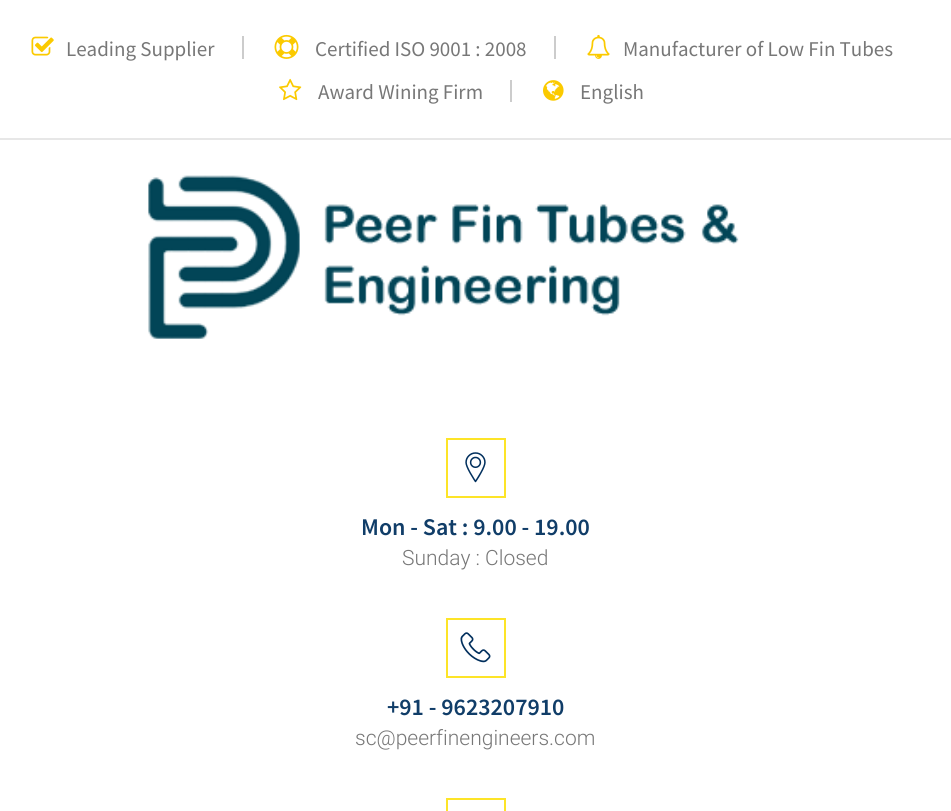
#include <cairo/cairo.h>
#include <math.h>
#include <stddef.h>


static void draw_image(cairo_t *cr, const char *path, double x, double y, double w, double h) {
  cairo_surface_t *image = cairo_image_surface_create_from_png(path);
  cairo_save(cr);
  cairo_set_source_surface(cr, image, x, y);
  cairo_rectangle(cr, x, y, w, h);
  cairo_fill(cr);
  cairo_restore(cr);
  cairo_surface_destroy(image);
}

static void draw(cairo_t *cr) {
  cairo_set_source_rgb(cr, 1, 1, 1);
  cairo_paint(cr);
  cairo_set_source_rgb(cr, 231 / 255.0, 231 / 255.0, 231 / 255.0);
  cairo_rectangle(cr, 0, 138, 951, 2);
  cairo_fill(cr);
  cairo_set_source_rgb(cr, 204 / 255.0, 204 / 255.0, 204 / 255.0);
  cairo_rectangle(cr, 242, 36, 2, 23);
  cairo_fill(cr);
  draw_image(cr, "images/1.png", 31, 36, 23, 20);
  cairo_rectangle(cr, 554, 36, 2, 23);
  cairo_fill(cr);
  draw_image(cr, "images/2.png", 274, 34, 25, 25);
  draw_image(cr, "images/3.png", 587, 34, 23, 25);
  cairo_rectangle(cr, 510, 80, 2, 22);
  cairo_fill(cr);
  draw_image(cr, "images/4.png", 279, 78, 23, 23);
  draw_image(cr, "images/5.png", 543, 80, 21, 21);
  draw_image(cr, "images/6.png", 148, 175, 591, 164);
  cairo_rectangle(cr, 447, 439, 58, 58);
  cairo_set_source_rgb(cr, 253 / 255.0, 228 / 255.0, 40 / 255.0);
  cairo_stroke(cr);
  draw_image(cr, "images/7.png", 465, 452, 21, 31);
  cairo_rectangle(cr, 447, 619, 58, 58);
  cairo_stroke(cr);
  draw_image(cr, "images/8.png", 460, 632, 31, 31);
  cairo_rectangle(cr, 447, 799, 58, 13);
  cairo_stroke(cr);
  cairo_select_font_face(cr, "Source Sans Pro", CAIRO_FONT_SLANT_NORMAL, CAIRO_FONT_WEIGHT_NORMAL);
  cairo_set_font_size(cr, 21);
  cairo_set_source_rgb(cr, 119 / 255.0, 119 / 255.0, 119 / 255.0);
  cairo_move_to(cr, 66, 56);
  cairo_show_text(cr, "Leading Supplier");
  cairo_move_to(cr, 315, 56);
  cairo_show_text(cr, "Certified ISO 9001 : 2008");
  cairo_move_to(cr, 623, 56);
  cairo_show_text(cr, "Manufacturer of Low Fin Tubes");
  cairo_move_to(cr, 318, 99);
  cairo_show_text(cr, "Award Wining Firm");
  cairo_move_to(cr, 580, 99);
  cairo_show_text(cr, "English");
  cairo_select_font_face(cr, "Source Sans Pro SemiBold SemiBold", CAIRO_FONT_SLANT_NORMAL, CAIRO_FONT_WEIGHT_NORMAL);
  cairo_set_font_size(cr, 24);
  cairo_set_source_rgb(cr, 16 / 255.0, 61 / 255.0, 104 / 255.0);
  cairo_move_to(cr, 361, 535);
  cairo_show_text(cr, "Mon - Sat : 9.00 - 19.00");
  cairo_select_font_face(cr, "Roboto Light", CAIRO_FONT_SLANT_NORMAL, CAIRO_FONT_WEIGHT_NORMAL);
  cairo_set_font_size(cr, 21);
  cairo_set_source_rgb(cr, 119 / 255.0, 119 / 255.0, 119 / 255.0);
  cairo_move_to(cr, 402, 565);
  cairo_show_text(cr, "Sunday : Closed");
  cairo_select_font_face(cr, "Source Sans Pro SemiBold SemiBold", CAIRO_FONT_SLANT_NORMAL, CAIRO_FONT_WEIGHT_NORMAL);
  cairo_set_font_size(cr, 24);
  cairo_set_source_rgb(cr, 16 / 255.0, 61 / 255.0, 104 / 255.0);
  cairo_move_to(cr, 387, 715);
  cairo_show_text(cr, "+91 - 9623207910");
  cairo_select_font_face(cr, "Roboto Light", CAIRO_FONT_SLANT_NORMAL, CAIRO_FONT_WEIGHT_NORMAL);
  cairo_set_font_size(cr, 21);
  cairo_set_source_rgb(cr, 119 / 255.0, 119 / 255.0, 119 / 255.0);
  cairo_move_to(cr, 355, 745);
  cairo_show_text(cr, "sc@peerfinengineers.com");
}

int main(void) {
  cairo_surface_t *surface = cairo_image_surface_create(CAIRO_FORMAT_RGB24, 951, 811);
  cairo_t *cr = cairo_create(surface);
  cairo_font_options_t *options = cairo_font_options_create();
  cairo_font_options_set_hint_metrics(options, CAIRO_HINT_METRICS_OFF);
  cairo_font_options_set_hint_style(options, CAIRO_HINT_STYLE_NONE);
  cairo_set_font_options(cr, options);
  cairo_set_miter_limit(cr, 4);
  draw(cr);
  cairo_surface_write_to_png(surface, "out.png");
  cairo_font_options_destroy(options);
  cairo_destroy(cr);
  cairo_surface_destroy(surface);
  return 0;
}
